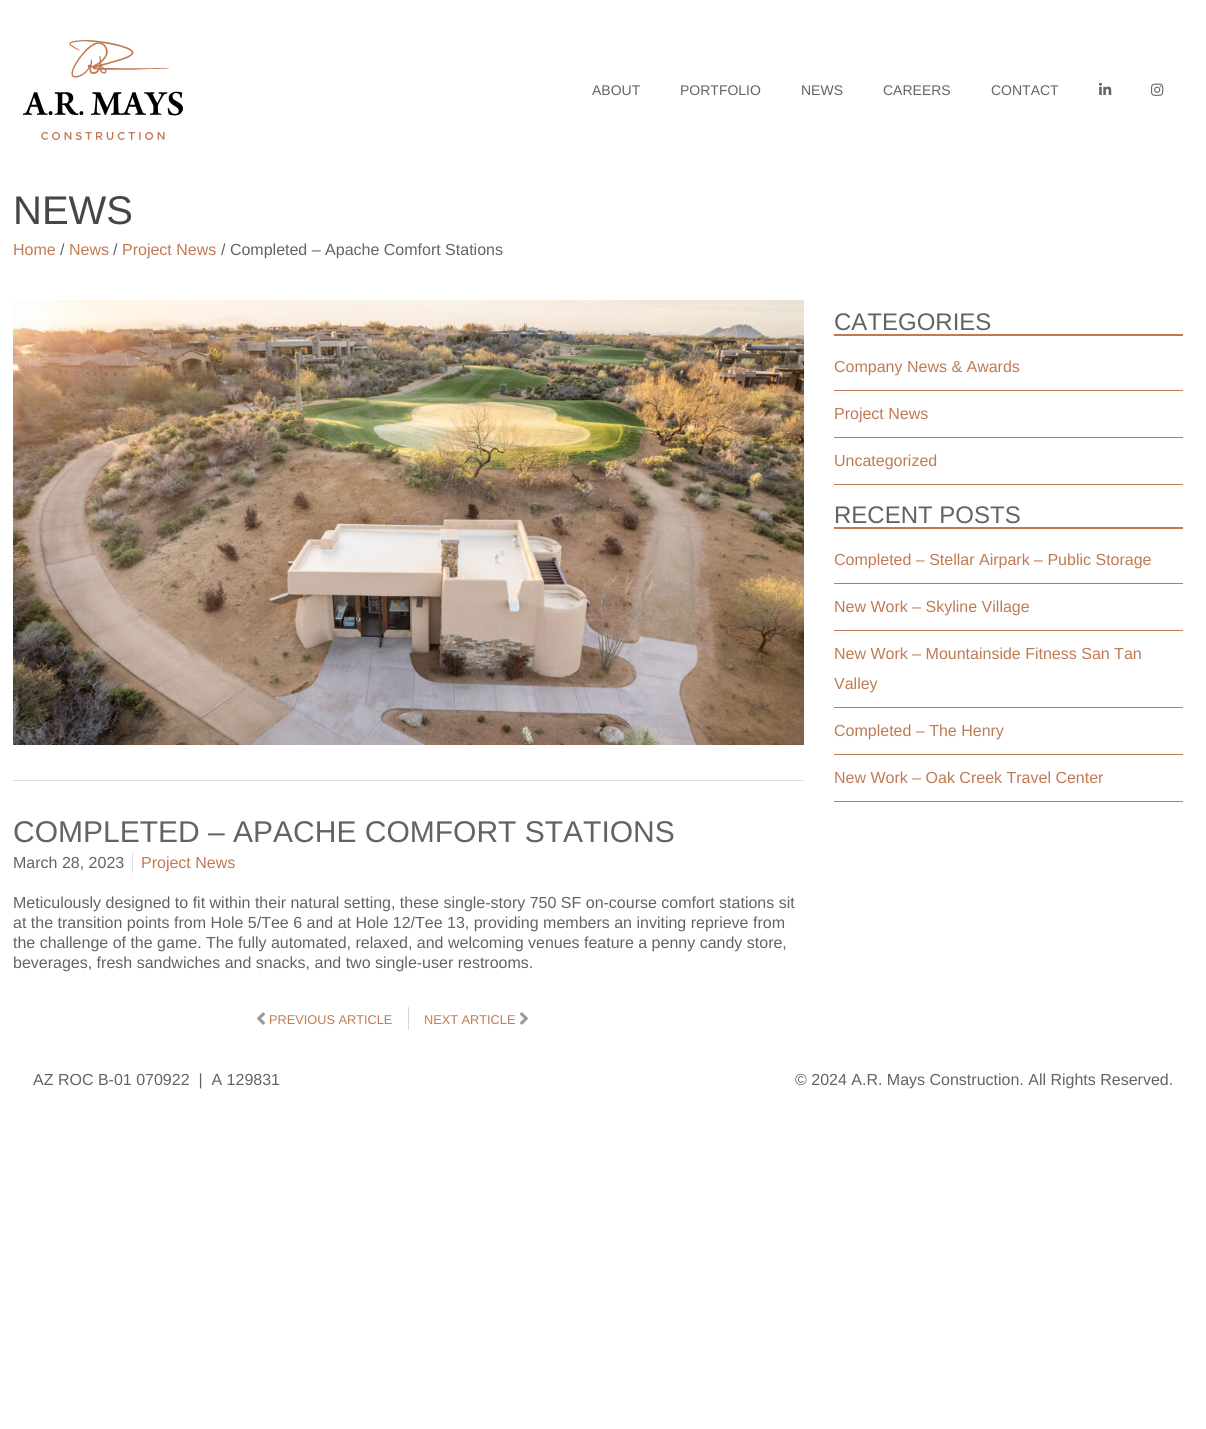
#include <cairo/cairo.h>
#include <math.h>
#include <stddef.h>


static void draw_image(cairo_t *cr, const char *path, double x, double y, double w, double h) {
  cairo_surface_t *image = cairo_image_surface_create_from_png(path);
  cairo_save(cr);
  cairo_set_source_surface(cr, image, x, y);
  cairo_rectangle(cr, x, y, w, h);
  cairo_fill(cr);
  cairo_restore(cr);
  cairo_surface_destroy(image);
}

static void draw(cairo_t *cr) {
  cairo_set_source_rgb(cr, 1, 1, 1);
  cairo_paint(cr);
  draw_image(cr, "images/1.png", 23, 40, 160, 100);
  draw_image(cr, "images/2.png", 1099, 82, 13, 13);
  draw_image(cr, "images/3.png", 1151, 83, 13, 13);
  cairo_set_source_rgb(cr, 192 / 255.0, 122 / 255.0, 83 / 255.0);
  cairo_rectangle(cr, 834, 334, 349, 2);
  cairo_fill(cr);
  cairo_rectangle(cr, 834, 390, 349, 1);
  cairo_fill(cr);
  cairo_rectangle(cr, 834, 437, 349, 1);
  cairo_fill(cr);
  cairo_rectangle(cr, 834, 484, 349, 1);
  cairo_fill(cr);
  cairo_rectangle(cr, 834, 527, 349, 2);
  cairo_fill(cr);
  cairo_rectangle(cr, 834, 583, 349, 1);
  cairo_fill(cr);
  cairo_rectangle(cr, 834, 630, 349, 1);
  cairo_fill(cr);
  cairo_rectangle(cr, 834, 707, 349, 1);
  cairo_fill(cr);
  cairo_rectangle(cr, 834, 754, 349, 1);
  cairo_fill(cr);
  cairo_rectangle(cr, 834, 801, 349, 1);
  cairo_fill(cr);
  draw_image(cr, "images/4.png", 13, 300, 791, 445);
  cairo_set_source_rgb(cr, 221 / 255.0, 221 / 255.0, 221 / 255.0);
  cairo_rectangle(cr, 13, 780, 791, 1);
  cairo_fill(cr);
  cairo_rectangle(cr, 132, 853, 1, 20);
  cairo_fill(cr);
  draw_image(cr, "images/5.png", 257, 1012, 8, 13);
  cairo_set_source_rgb(cr, 213 / 255.0, 216 / 255.0, 220 / 255.0);
  cairo_rectangle(cr, 408, 1007, 1, 23);
  cairo_fill(cr);
  draw_image(cr, "images/6.png", 520, 1012, 8, 13);
  cairo_select_font_face(cr, "Liberation Sans", CAIRO_FONT_SLANT_NORMAL, CAIRO_FONT_WEIGHT_NORMAL);
  cairo_set_font_size(cr, 14);
  cairo_set_source_rgb(cr, 99 / 255.0, 99 / 255.0, 99 / 255.0);
  cairo_move_to(cr, 592, 95);
  cairo_show_text(cr, "ABOUT");
  cairo_move_to(cr, 680, 95);
  cairo_show_text(cr, "PORTFOLIO");
  cairo_move_to(cr, 801, 95);
  cairo_show_text(cr, "NEWS");
  cairo_move_to(cr, 883, 95);
  cairo_show_text(cr, "CAREERS");
  cairo_move_to(cr, 991, 95);
  cairo_show_text(cr, "CONTACT");
  cairo_set_font_size(cr, 40);
  cairo_set_source_rgb(cr, 70 / 255.0, 70 / 255.0, 70 / 255.0);
  cairo_move_to(cr, 13, 224);
  cairo_show_text(cr, "NEWS");
  cairo_set_font_size(cr, 16);
  cairo_set_source_rgb(cr, 192 / 255.0, 122 / 255.0, 83 / 255.0);
  cairo_move_to(cr, 13, 255);
  cairo_show_text(cr, "Home");
  cairo_set_source_rgb(cr, 99 / 255.0, 99 / 255.0, 99 / 255.0);
  cairo_move_to(cr, 60, 255);
  cairo_show_text(cr, "/");
  cairo_set_source_rgb(cr, 192 / 255.0, 122 / 255.0, 83 / 255.0);
  cairo_move_to(cr, 69, 255);
  cairo_show_text(cr, "News");
  cairo_set_source_rgb(cr, 99 / 255.0, 99 / 255.0, 99 / 255.0);
  cairo_move_to(cr, 113, 255);
  cairo_show_text(cr, "/");
  cairo_set_source_rgb(cr, 192 / 255.0, 122 / 255.0, 83 / 255.0);
  cairo_move_to(cr, 122, 255);
  cairo_show_text(cr, "Project News");
  cairo_set_source_rgb(cr, 99 / 255.0, 99 / 255.0, 99 / 255.0);
  cairo_move_to(cr, 221, 255);
  cairo_show_text(cr, "/ Completed – Apache Comfort Stations");
  cairo_set_font_size(cr, 24);
  cairo_move_to(cr, 834, 330);
  cairo_show_text(cr, "CATEGORIES");
  cairo_set_font_size(cr, 16);
  cairo_set_source_rgb(cr, 192 / 255.0, 122 / 255.0, 83 / 255.0);
  cairo_move_to(cr, 834, 372);
  cairo_show_text(cr, "Company News & Awards");
  cairo_move_to(cr, 834, 419);
  cairo_show_text(cr, "Project News");
  cairo_move_to(cr, 834, 466);
  cairo_show_text(cr, "Uncategorized");
  cairo_set_font_size(cr, 24);
  cairo_set_source_rgb(cr, 99 / 255.0, 99 / 255.0, 99 / 255.0);
  cairo_move_to(cr, 834, 523);
  cairo_show_text(cr, "RECENT POSTS");
  cairo_set_font_size(cr, 16);
  cairo_set_source_rgb(cr, 192 / 255.0, 122 / 255.0, 83 / 255.0);
  cairo_move_to(cr, 834, 565);
  cairo_show_text(cr, "Completed – Stellar Airpark – Public Storage");
  cairo_move_to(cr, 834, 612);
  cairo_show_text(cr, "New Work – Skyline Village");
  cairo_move_to(cr, 834, 659);
  cairo_show_text(cr, "New Work – Mountainside Fitness San Tan");
  cairo_move_to(cr, 834, 689);
  cairo_show_text(cr, "Valley");
  cairo_move_to(cr, 834, 736);
  cairo_show_text(cr, "Completed – The Henry");
  cairo_move_to(cr, 834, 783);
  cairo_show_text(cr, "New Work – Oak Creek Travel Center");
  cairo_set_font_size(cr, 30);
  cairo_set_source_rgb(cr, 99 / 255.0, 99 / 255.0, 99 / 255.0);
  cairo_move_to(cr, 13, 842);
  cairo_show_text(cr, "COMPLETED – APACHE COMFORT STATIONS");
  cairo_set_font_size(cr, 16);
  cairo_move_to(cr, 13, 868);
  cairo_show_text(cr, "March 28, 2023");
  cairo_set_source_rgb(cr, 192 / 255.0, 122 / 255.0, 83 / 255.0);
  cairo_move_to(cr, 141, 868);
  cairo_show_text(cr, "Project News");
  cairo_set_source_rgb(cr, 99 / 255.0, 99 / 255.0, 99 / 255.0);
  cairo_move_to(cr, 13, 908);
  cairo_show_text(cr, "Meticulously designed to fit within their natural setting, these single-story 750 SF on-course comfort stations sit");
  cairo_move_to(cr, 13, 928);
  cairo_show_text(cr, "at the transition points from Hole 5/Tee 6 and at Hole 12/Tee 13, providing members an inviting reprieve from");
  cairo_move_to(cr, 13, 948);
  cairo_show_text(cr, "the challenge of the game. The fully automated, relaxed, and welcoming venues feature a penny candy store,");
  cairo_move_to(cr, 13, 968);
  cairo_show_text(cr, "beverages, fresh sandwiches and snacks, and two single-user restrooms.");
  cairo_set_font_size(cr, 12.75);
  cairo_set_source_rgb(cr, 192 / 255.0, 122 / 255.0, 83 / 255.0);
  cairo_move_to(cr, 269, 1024);
  cairo_show_text(cr, "PREVIOUS ARTICLE");
  cairo_move_to(cr, 424, 1024);
  cairo_show_text(cr, "NEXT ARTICLE");
  cairo_set_font_size(cr, 16);
  cairo_set_source_rgb(cr, 99 / 255.0, 99 / 255.0, 99 / 255.0);
  cairo_move_to(cr, 33, 1085);
  cairo_show_text(cr, "AZ ROC B-01 070922  |  A 129831");
  cairo_move_to(cr, 795, 1085);
  cairo_show_text(cr, "© 2024 A.R. Mays Construction. All Rights Reserved.");
}

int main(void) {
  cairo_surface_t *surface = cairo_image_surface_create(CAIRO_FORMAT_RGB24, 1206, 1429);
  cairo_t *cr = cairo_create(surface);
  cairo_font_options_t *options = cairo_font_options_create();
  cairo_font_options_set_hint_metrics(options, CAIRO_HINT_METRICS_OFF);
  cairo_font_options_set_hint_style(options, CAIRO_HINT_STYLE_NONE);
  cairo_set_font_options(cr, options);
  cairo_set_miter_limit(cr, 4);
  draw(cr);
  cairo_surface_write_to_png(surface, "out.png");
  cairo_font_options_destroy(options);
  cairo_destroy(cr);
  cairo_surface_destroy(surface);
  return 0;
}
